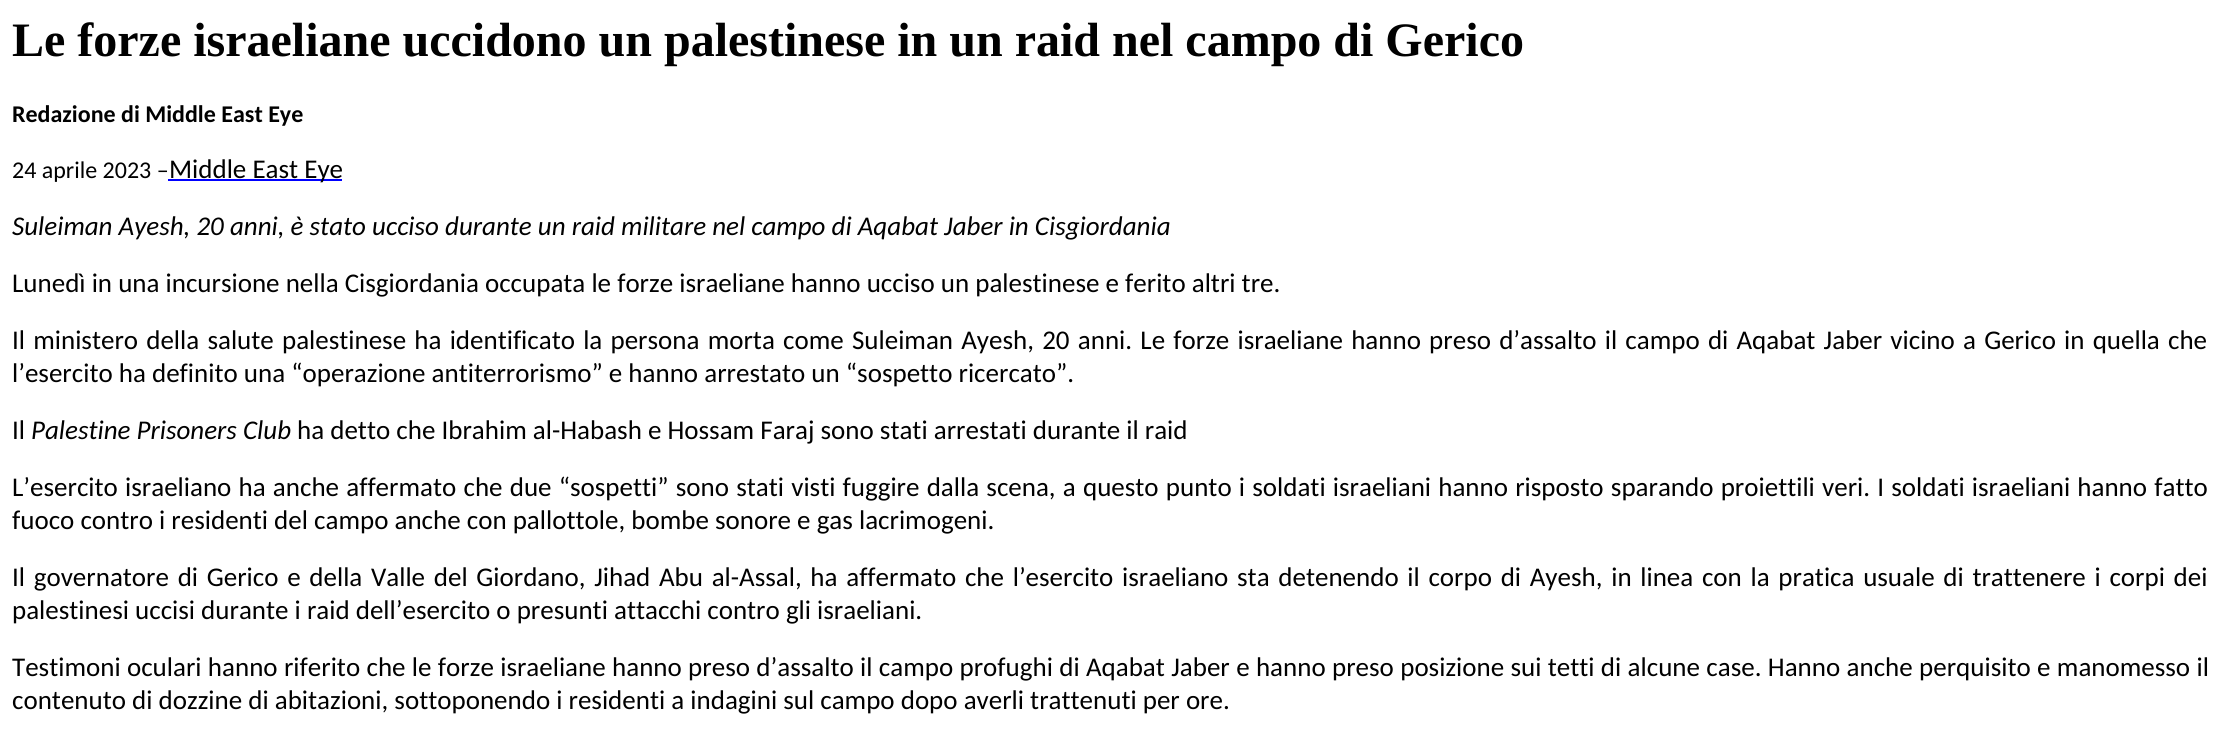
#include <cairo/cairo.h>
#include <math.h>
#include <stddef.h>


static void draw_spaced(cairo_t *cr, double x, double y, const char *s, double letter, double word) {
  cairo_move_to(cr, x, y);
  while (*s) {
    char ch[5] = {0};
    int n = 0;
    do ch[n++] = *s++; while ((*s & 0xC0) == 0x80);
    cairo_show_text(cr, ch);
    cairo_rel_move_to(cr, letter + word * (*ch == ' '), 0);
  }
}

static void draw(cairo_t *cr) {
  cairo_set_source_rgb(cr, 1, 1, 1);
  cairo_paint(cr);
  cairo_set_source_rgb(cr, 0, 0, 1);
  cairo_rectangle(cr, 168, 179, 174, 2);
  cairo_fill(cr);
  cairo_select_font_face(cr, "Liberation Serif", CAIRO_FONT_SLANT_NORMAL, CAIRO_FONT_WEIGHT_BOLD);
  cairo_set_font_size(cr, 48);
  cairo_set_source_rgb(cr, 0, 0, 0);
  cairo_move_to(cr, 12, 56);
  cairo_show_text(cr, "Le forze israeliane uccidono un palestinese in un raid nel campo di Gerico");
  cairo_select_font_face(cr, "Carlito", CAIRO_FONT_SLANT_NORMAL, CAIRO_FONT_WEIGHT_BOLD);
  cairo_set_font_size(cr, 24);
  cairo_move_to(cr, 12, 122);
  cairo_show_text(cr, "Redazione di Middle East Eye");
  cairo_select_font_face(cr, "Carlito", CAIRO_FONT_SLANT_NORMAL, CAIRO_FONT_WEIGHT_NORMAL);
  cairo_move_to(cr, 12, 178);
  cairo_show_text(cr, "24 aprile 2023 –");
  cairo_set_font_size(cr, 27);
  cairo_move_to(cr, 169, 178);
  cairo_show_text(cr, "Middle East Eye");
  cairo_select_font_face(cr, "Carlito", CAIRO_FONT_SLANT_ITALIC, CAIRO_FONT_WEIGHT_NORMAL);
  cairo_move_to(cr, 12, 235);
  cairo_show_text(cr, "Suleiman Ayesh, 20 anni, è stato ucciso durante un raid militare nel campo di Aqabat Jaber in Cisgiordania");
  cairo_select_font_face(cr, "Carlito", CAIRO_FONT_SLANT_NORMAL, CAIRO_FONT_WEIGHT_NORMAL);
  cairo_move_to(cr, 12, 292);
  cairo_show_text(cr, "Lunedì in una incursione nella Cisgiordania occupata le forze israeliane hanno ucciso un palestinese e ferito altri tre.");
  draw_spaced(cr, 12, 349, "Il ministero della salute palestinese ha identificato la persona morta come Suleiman Ayesh, 20 anni. Le forze israeliane hanno preso d’assalto il campo di Aqabat Jaber vicino a Gerico in quella che", 0, 2.1);
  cairo_move_to(cr, 12, 382);
  cairo_show_text(cr, "l’esercito ha definito una “operazione antiterrorismo” e hanno arrestato un “sospetto ricercato”.");
  cairo_move_to(cr, 12, 439);
  cairo_show_text(cr, "Il");
  cairo_select_font_face(cr, "Carlito", CAIRO_FONT_SLANT_ITALIC, CAIRO_FONT_WEIGHT_NORMAL);
  cairo_move_to(cr, 31, 439);
  cairo_show_text(cr, "Palestine Prisoners Club");
  cairo_select_font_face(cr, "Carlito", CAIRO_FONT_SLANT_NORMAL, CAIRO_FONT_WEIGHT_NORMAL);
  cairo_move_to(cr, 297, 439);
  cairo_show_text(cr, "ha detto che Ibrahim al-Habash e Hossam Faraj sono stati arrestati durante il raid");
  draw_spaced(cr, 12, 496, "L’esercito israeliano ha anche affermato che due “sospetti” sono stati visti fuggire dalla scena, a questo punto i soldati israeliani hanno risposto sparando proiettili veri. I soldati israeliani hanno fatto", 0, 1.1);
  cairo_move_to(cr, 12, 529);
  cairo_show_text(cr, "fuoco contro i residenti del campo anche con pallottole, bombe sonore e gas lacrimogeni.");
  draw_spaced(cr, 12, 586, "Il governatore di Gerico e della Valle del Giordano, Jihad Abu al-Assal, ha affermato che l’esercito israeliano sta detenendo il corpo di Ayesh, in linea con la pratica usuale di trattenere i corpi dei", 0, 2.6);
  cairo_move_to(cr, 12, 619);
  cairo_show_text(cr, "palestinesi uccisi durante i raid dell’esercito o presunti attacchi contro gli israeliani.");
  draw_spaced(cr, 12, 676, "Testimoni oculari hanno riferito che le forze israeliane hanno preso d’assalto il campo profughi di Aqabat Jaber e hanno preso posizione sui tetti di alcune case. Hanno anche perquisito e manomesso il", 0, 0.25);
  cairo_move_to(cr, 12, 709);
  cairo_show_text(cr, "contenuto di dozzine di abitazioni, sottoponendo i residenti a indagini sul campo dopo averli trattenuti per ore.");
}

int main(void) {
  cairo_surface_t *surface = cairo_image_surface_create(CAIRO_FORMAT_RGB24, 2219, 745);
  cairo_t *cr = cairo_create(surface);
  cairo_font_options_t *options = cairo_font_options_create();
  cairo_font_options_set_hint_metrics(options, CAIRO_HINT_METRICS_OFF);
  cairo_font_options_set_hint_style(options, CAIRO_HINT_STYLE_NONE);
  cairo_set_font_options(cr, options);
  cairo_set_miter_limit(cr, 4);
  draw(cr);
  cairo_surface_write_to_png(surface, "out.png");
  cairo_font_options_destroy(options);
  cairo_destroy(cr);
  cairo_surface_destroy(surface);
  return 0;
}
